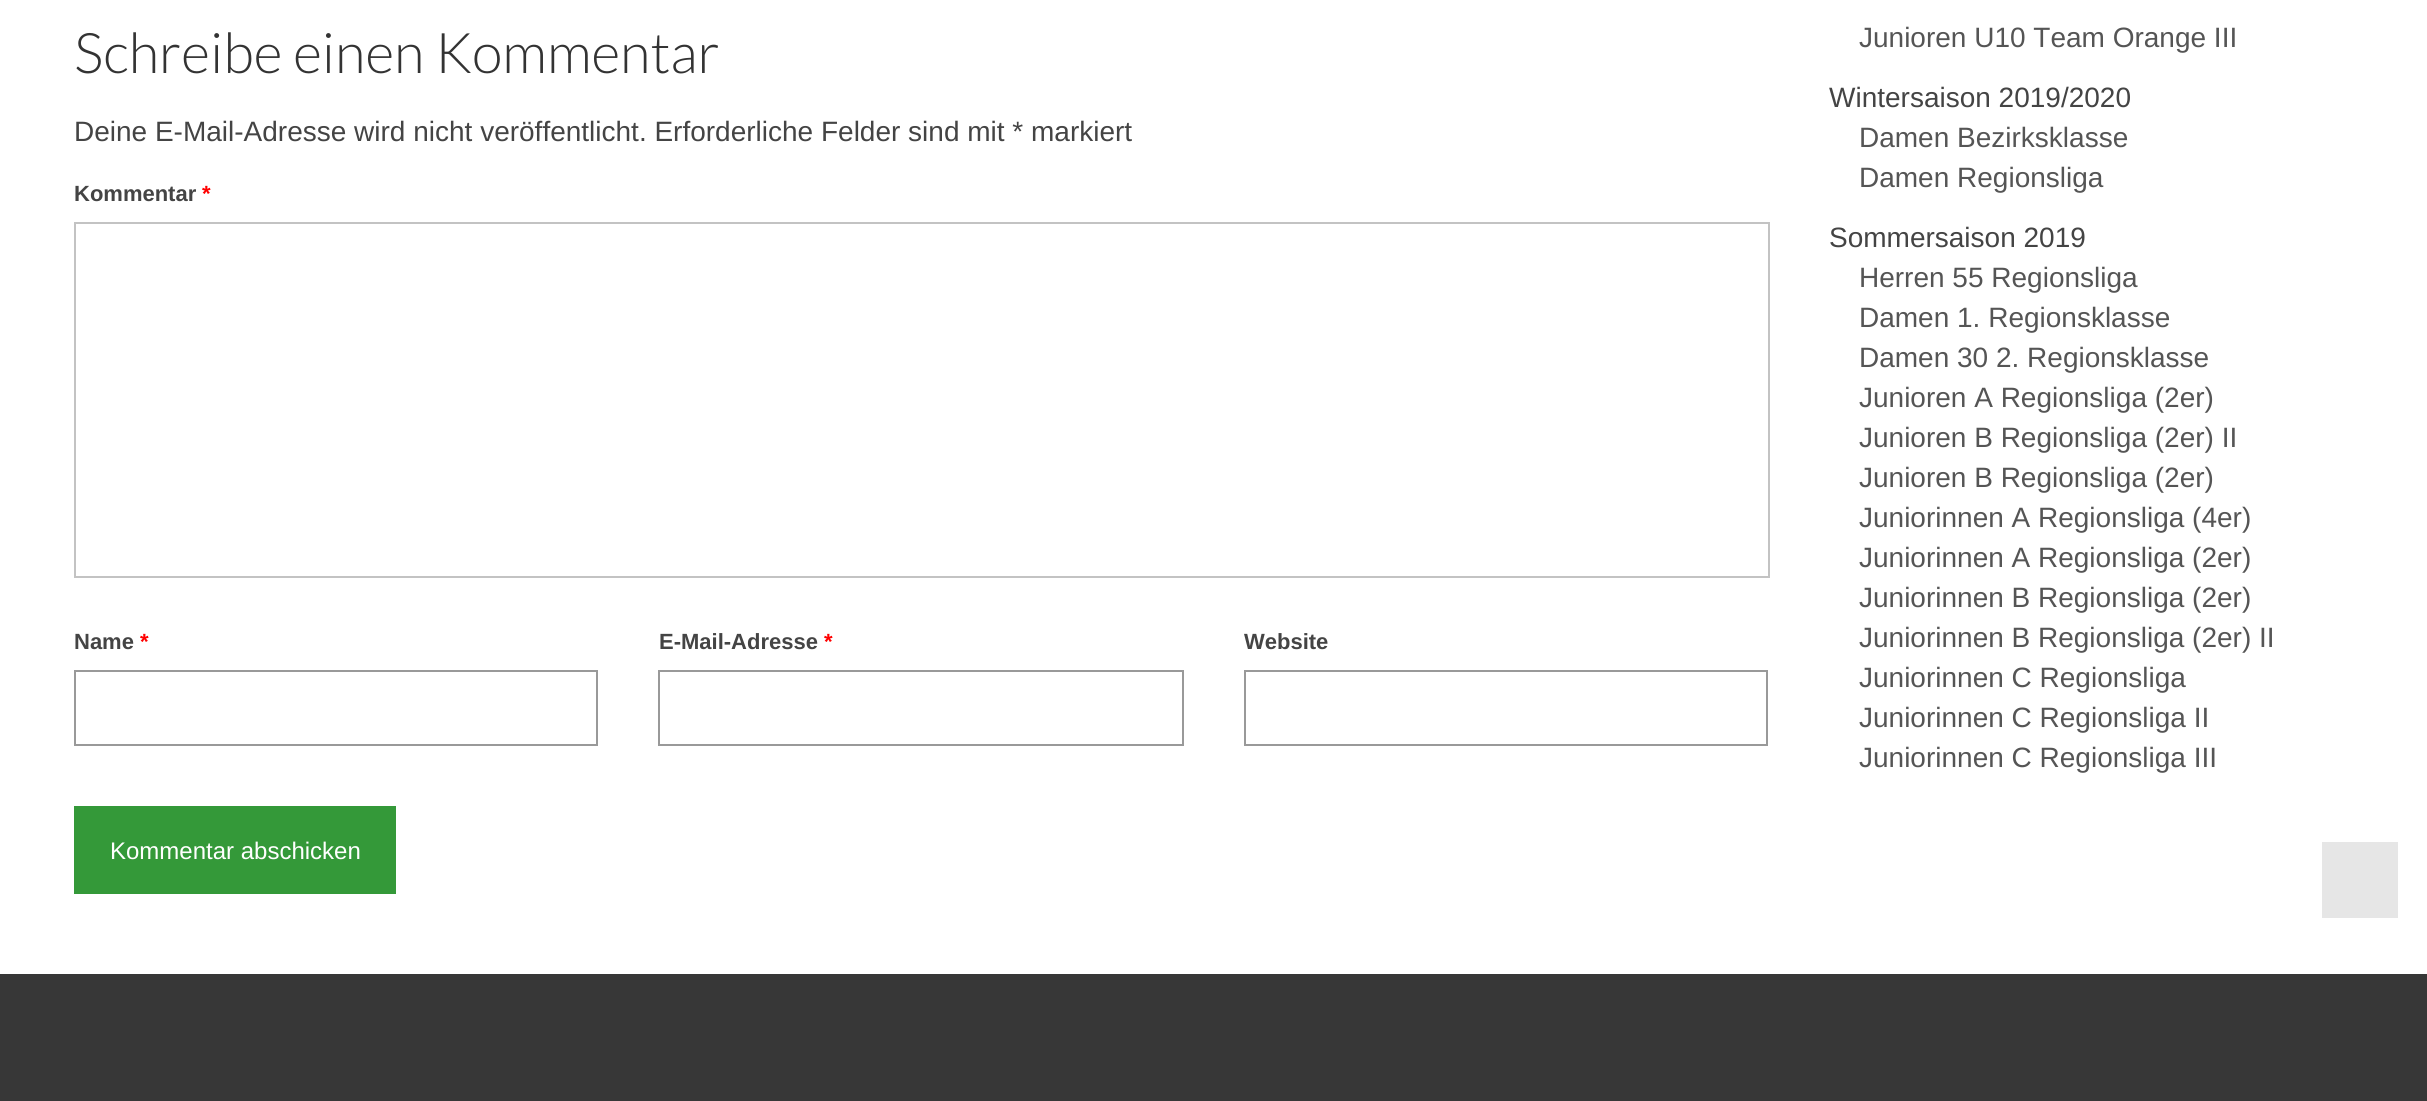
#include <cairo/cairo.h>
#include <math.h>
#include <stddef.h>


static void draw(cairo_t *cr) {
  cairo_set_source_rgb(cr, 1, 1, 1);
  cairo_paint(cr);
  cairo_rectangle(cr, 75, 223, 1694, 354);
  cairo_set_source_rgb(cr, 195 / 255.0, 195 / 255.0, 195 / 255.0);
  cairo_stroke(cr);
  cairo_rectangle(cr, 75, 671, 522, 74);
  cairo_set_source_rgb(cr, 153 / 255.0, 153 / 255.0, 153 / 255.0);
  cairo_stroke(cr);
  cairo_rectangle(cr, 659, 671, 524, 74);
  cairo_stroke(cr);
  cairo_rectangle(cr, 1245, 671, 522, 74);
  cairo_stroke(cr);
  cairo_set_source_rgb(cr, 52 / 255.0, 153 / 255.0, 57 / 255.0);
  cairo_rectangle(cr, 74, 806, 322, 88);
  cairo_fill(cr);
  cairo_set_source_rgb(cr, 55 / 255.0, 55 / 255.0, 55 / 255.0);
  cairo_rectangle(cr, 0, 974, 2427, 127);
  cairo_fill(cr);
  cairo_set_source_rgb(cr, 230 / 255.0, 230 / 255.0, 230 / 255.0);
  cairo_rectangle(cr, 2322, 842, 76, 76);
  cairo_fill(cr);
  cairo_select_font_face(cr, "Lato Light", CAIRO_FONT_SLANT_NORMAL, CAIRO_FONT_WEIGHT_NORMAL);
  cairo_set_font_size(cr, 56);
  cairo_set_source_rgb(cr, 51 / 255.0, 51 / 255.0, 51 / 255.0);
  cairo_move_to(cr, 74, 73);
  cairo_show_text(cr, "Schreibe einen Kommentar");
  cairo_select_font_face(cr, "Liberation Sans", CAIRO_FONT_SLANT_NORMAL, CAIRO_FONT_WEIGHT_NORMAL);
  cairo_set_font_size(cr, 28);
  cairo_set_source_rgb(cr, 68 / 255.0, 68 / 255.0, 68 / 255.0);
  cairo_move_to(cr, 74, 141);
  cairo_show_text(cr, "Deine E-Mail-Adresse wird nicht veröffentlicht. Erforderliche Felder sind mit * markiert");
  cairo_select_font_face(cr, "Liberation Sans", CAIRO_FONT_SLANT_NORMAL, CAIRO_FONT_WEIGHT_BOLD);
  cairo_set_font_size(cr, 22);
  cairo_move_to(cr, 74, 201);
  cairo_show_text(cr, "Kommentar");
  cairo_set_source_rgb(cr, 1, 0, 0);
  cairo_move_to(cr, 202, 201);
  cairo_show_text(cr, "*");
  cairo_set_source_rgb(cr, 68 / 255.0, 68 / 255.0, 68 / 255.0);
  cairo_move_to(cr, 74, 649);
  cairo_show_text(cr, "Name");
  cairo_set_source_rgb(cr, 1, 0, 0);
  cairo_move_to(cr, 140, 649);
  cairo_show_text(cr, "*");
  cairo_set_source_rgb(cr, 68 / 255.0, 68 / 255.0, 68 / 255.0);
  cairo_move_to(cr, 659, 649);
  cairo_show_text(cr, "E-Mail-Adresse");
  cairo_set_source_rgb(cr, 1, 0, 0);
  cairo_move_to(cr, 824, 649);
  cairo_show_text(cr, "*");
  cairo_set_source_rgb(cr, 68 / 255.0, 68 / 255.0, 68 / 255.0);
  cairo_move_to(cr, 1244, 649);
  cairo_show_text(cr, "Website");
  cairo_select_font_face(cr, "Liberation Sans", CAIRO_FONT_SLANT_NORMAL, CAIRO_FONT_WEIGHT_NORMAL);
  cairo_set_font_size(cr, 24);
  cairo_set_source_rgb(cr, 1, 1, 1);
  cairo_move_to(cr, 110, 859);
  cairo_show_text(cr, "Kommentar abschicken");
  cairo_set_font_size(cr, 28);
  cairo_set_source_rgb(cr, 85 / 255.0, 85 / 255.0, 85 / 255.0);
  cairo_move_to(cr, 1859, 47);
  cairo_show_text(cr, "Junioren U10 Team Orange III");
  cairo_set_source_rgb(cr, 68 / 255.0, 68 / 255.0, 68 / 255.0);
  cairo_move_to(cr, 1829, 107);
  cairo_show_text(cr, "Wintersaison 2019/2020");
  cairo_set_source_rgb(cr, 85 / 255.0, 85 / 255.0, 85 / 255.0);
  cairo_move_to(cr, 1859, 147);
  cairo_show_text(cr, "Damen Bezirksklasse");
  cairo_move_to(cr, 1859, 187);
  cairo_show_text(cr, "Damen Regionsliga");
  cairo_set_source_rgb(cr, 68 / 255.0, 68 / 255.0, 68 / 255.0);
  cairo_move_to(cr, 1829, 247);
  cairo_show_text(cr, "Sommersaison 2019");
  cairo_set_source_rgb(cr, 85 / 255.0, 85 / 255.0, 85 / 255.0);
  cairo_move_to(cr, 1859, 287);
  cairo_show_text(cr, "Herren 55 Regionsliga");
  cairo_move_to(cr, 1859, 327);
  cairo_show_text(cr, "Damen 1. Regionsklasse");
  cairo_move_to(cr, 1859, 367);
  cairo_show_text(cr, "Damen 30 2. Regionsklasse");
  cairo_move_to(cr, 1859, 407);
  cairo_show_text(cr, "Junioren A Regionsliga (2er)");
  cairo_move_to(cr, 1859, 447);
  cairo_show_text(cr, "Junioren B Regionsliga (2er) II");
  cairo_move_to(cr, 1859, 487);
  cairo_show_text(cr, "Junioren B Regionsliga (2er)");
  cairo_move_to(cr, 1859, 527);
  cairo_show_text(cr, "Juniorinnen A Regionsliga (4er)");
  cairo_move_to(cr, 1859, 567);
  cairo_show_text(cr, "Juniorinnen A Regionsliga (2er)");
  cairo_move_to(cr, 1859, 607);
  cairo_show_text(cr, "Juniorinnen B Regionsliga (2er)");
  cairo_move_to(cr, 1859, 647);
  cairo_show_text(cr, "Juniorinnen B Regionsliga (2er) II");
  cairo_move_to(cr, 1859, 687);
  cairo_show_text(cr, "Juniorinnen C Regionsliga");
  cairo_move_to(cr, 1859, 727);
  cairo_show_text(cr, "Juniorinnen C Regionsliga II");
  cairo_move_to(cr, 1859, 767);
  cairo_show_text(cr, "Juniorinnen C Regionsliga III");
}

int main(void) {
  cairo_surface_t *surface = cairo_image_surface_create(CAIRO_FORMAT_RGB24, 2427, 1101);
  cairo_t *cr = cairo_create(surface);
  cairo_font_options_t *options = cairo_font_options_create();
  cairo_font_options_set_hint_metrics(options, CAIRO_HINT_METRICS_OFF);
  cairo_font_options_set_hint_style(options, CAIRO_HINT_STYLE_NONE);
  cairo_set_font_options(cr, options);
  cairo_set_miter_limit(cr, 4);
  draw(cr);
  cairo_surface_write_to_png(surface, "out.png");
  cairo_font_options_destroy(options);
  cairo_destroy(cr);
  cairo_surface_destroy(surface);
  return 0;
}
